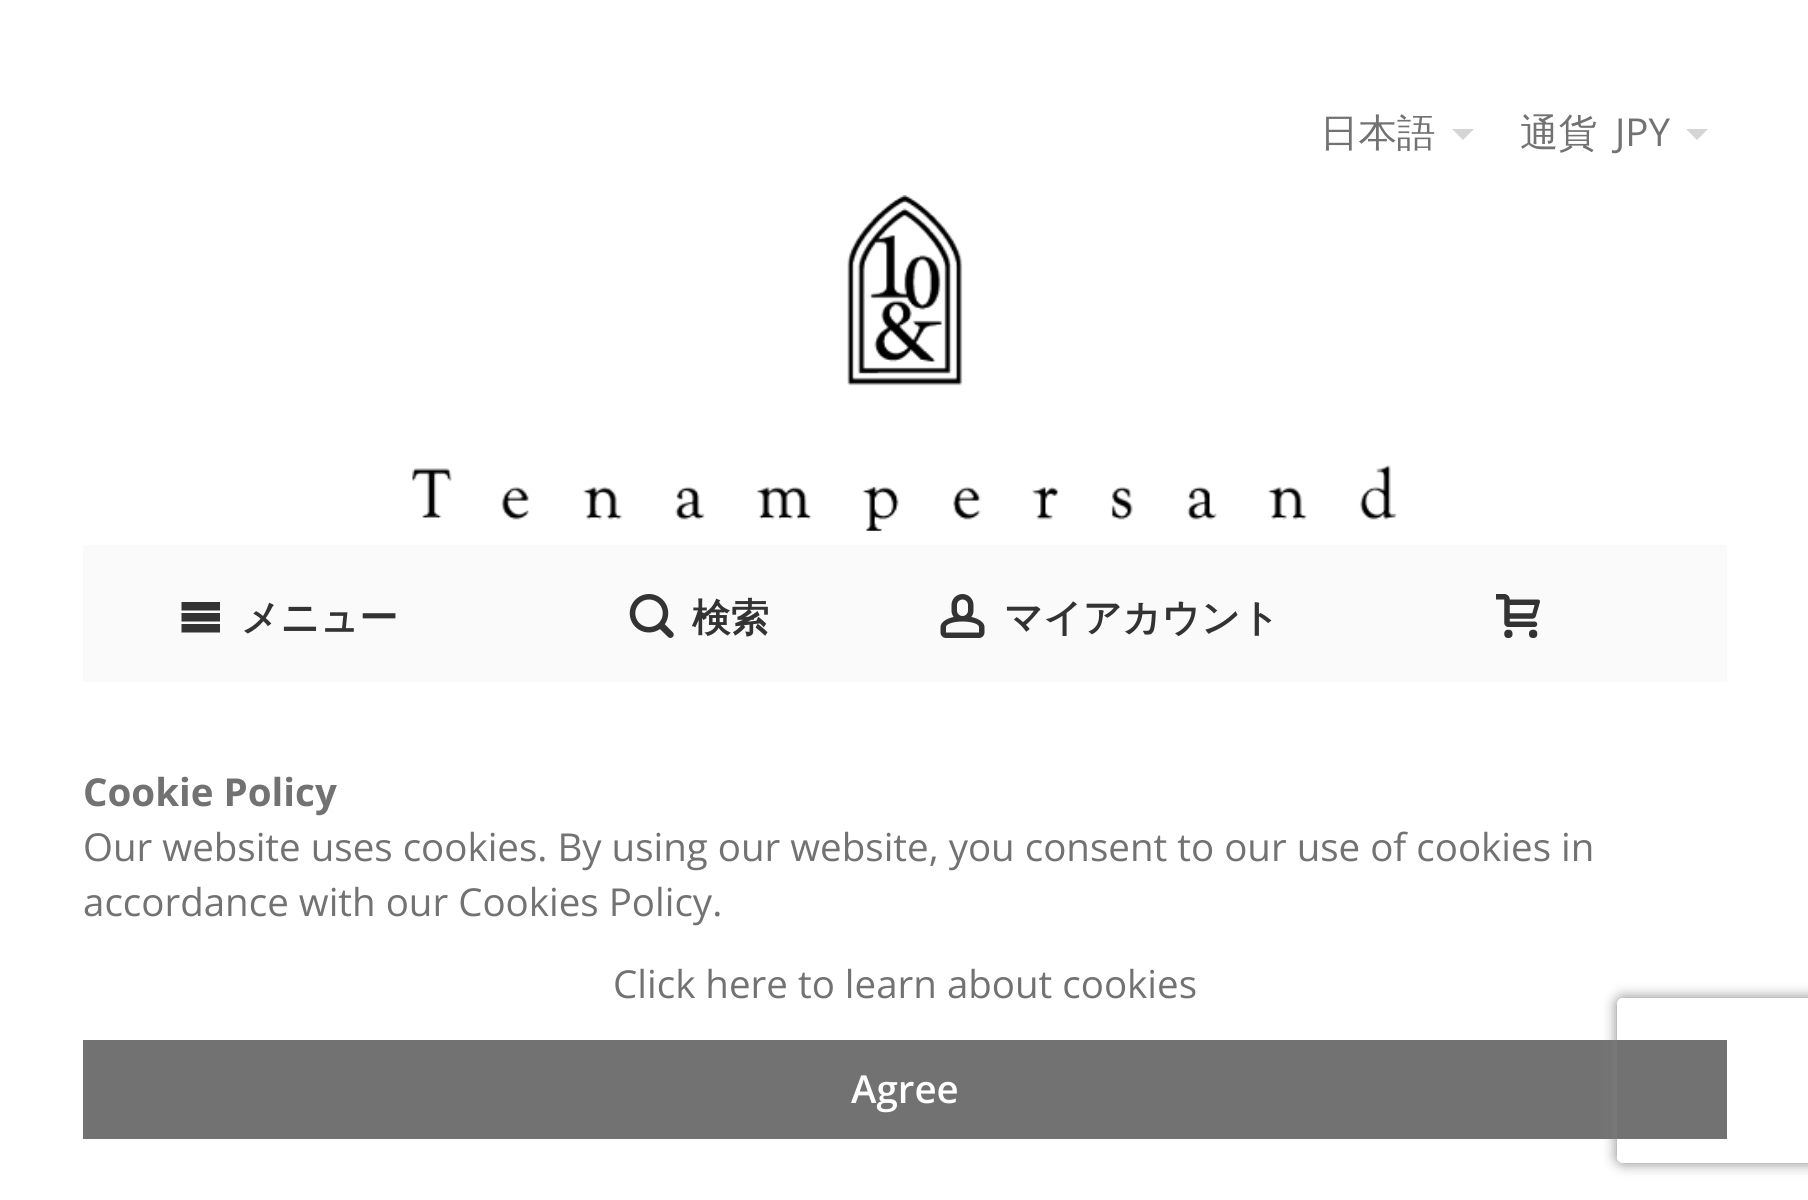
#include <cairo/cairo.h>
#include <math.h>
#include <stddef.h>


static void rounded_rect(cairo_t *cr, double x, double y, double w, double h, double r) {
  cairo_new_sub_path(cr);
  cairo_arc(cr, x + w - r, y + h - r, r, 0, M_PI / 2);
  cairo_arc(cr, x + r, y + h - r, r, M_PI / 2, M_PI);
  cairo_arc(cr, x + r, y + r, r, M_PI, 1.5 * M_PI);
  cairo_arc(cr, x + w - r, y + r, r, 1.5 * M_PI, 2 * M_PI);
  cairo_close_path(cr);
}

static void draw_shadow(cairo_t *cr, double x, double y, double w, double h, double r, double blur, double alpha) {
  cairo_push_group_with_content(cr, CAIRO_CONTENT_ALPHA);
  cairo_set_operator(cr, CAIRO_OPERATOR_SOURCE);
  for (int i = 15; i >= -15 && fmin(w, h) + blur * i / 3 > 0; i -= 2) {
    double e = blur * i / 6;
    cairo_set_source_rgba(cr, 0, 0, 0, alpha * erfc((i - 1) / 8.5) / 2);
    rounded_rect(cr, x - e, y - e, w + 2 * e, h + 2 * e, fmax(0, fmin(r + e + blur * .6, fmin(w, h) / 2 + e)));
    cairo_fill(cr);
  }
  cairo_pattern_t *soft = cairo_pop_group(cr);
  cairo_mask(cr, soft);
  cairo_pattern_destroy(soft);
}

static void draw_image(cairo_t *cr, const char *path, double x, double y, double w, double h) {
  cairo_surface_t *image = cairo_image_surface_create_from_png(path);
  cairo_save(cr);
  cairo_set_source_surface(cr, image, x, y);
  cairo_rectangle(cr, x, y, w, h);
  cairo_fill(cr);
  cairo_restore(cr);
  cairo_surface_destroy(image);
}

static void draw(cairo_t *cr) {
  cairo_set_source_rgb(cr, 1, 1, 1);
  cairo_paint(cr);
  cairo_set_source_rgb(cr, 213 / 255.0, 213 / 255.0, 213 / 255.0);
  cairo_new_path(cr);
  cairo_move_to(cr, 1452, 129);
  cairo_line_to(cr, 1474, 129);
  cairo_line_to(cr, 1463, 140);
  cairo_close_path(cr);
  cairo_fill(cr);
  cairo_new_path(cr);
  cairo_move_to(cr, 1686, 129);
  cairo_line_to(cr, 1708, 129);
  cairo_line_to(cr, 1697, 140);
  cairo_close_path(cr);
  cairo_fill(cr);
  draw_image(cr, "images/1.png", 412, 195, 985, 336);
  cairo_set_source_rgb(cr, 250 / 255.0, 250 / 255.0, 250 / 255.0);
  cairo_rectangle(cr, 83, 545, 1644, 137);
  cairo_fill(cr);
  cairo_set_source_rgb(cr, 51 / 255.0, 51 / 255.0, 51 / 255.0);
  cairo_new_path(cr);
  cairo_move_to(cr, 181.5, 602);
  cairo_line_to(cr, 220, 602);
  cairo_line_to(cr, 220, 610.5);
  cairo_line_to(cr, 181.5, 610.5);
  cairo_close_path(cr);
  cairo_move_to(cr, 181.5, 613);
  cairo_line_to(cr, 220, 613);
  cairo_line_to(cr, 220, 621.5);
  cairo_line_to(cr, 181.5, 621.5);
  cairo_close_path(cr);
  cairo_move_to(cr, 181.5, 624);
  cairo_line_to(cr, 220, 624);
  cairo_line_to(cr, 220, 632.5);
  cairo_line_to(cr, 181.5, 632.5);
  cairo_close_path(cr);
  cairo_fill(cr);
  draw_image(cr, "images/2.png", 629, 594, 45, 44);
  draw_image(cr, "images/3.png", 940, 594, 45, 44);
  draw_image(cr, "images/4.png", 1496, 594, 44, 44);
  cairo_set_source_rgb(cr, 114 / 255.0, 114 / 255.0, 114 / 255.0);
  cairo_rectangle(cr, 83, 1040, 1644, 99);
  cairo_fill(cr);
  cairo_save(cr);
  cairo_set_fill_rule(cr, CAIRO_FILL_RULE_EVEN_ODD);
  cairo_new_path(cr);
  cairo_move_to(cr, 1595, 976);
  cairo_line_to(cr, 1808, 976);
  cairo_line_to(cr, 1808, 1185);
  cairo_line_to(cr, 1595, 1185);
  cairo_close_path(cr);
  cairo_move_to(cr, 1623, 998);
  cairo_line_to(cr, 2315, 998);
  cairo_curve_to(cr, 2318.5, 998, 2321, 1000.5, 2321, 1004);
  cairo_line_to(cr, 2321, 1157);
  cairo_curve_to(cr, 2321, 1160.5, 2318.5, 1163, 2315, 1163);
  cairo_line_to(cr, 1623, 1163);
  cairo_curve_to(cr, 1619.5, 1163, 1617, 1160.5, 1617, 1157);
  cairo_line_to(cr, 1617, 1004);
  cairo_curve_to(cr, 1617, 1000.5, 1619.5, 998, 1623, 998);
  cairo_close_path(cr);
  cairo_clip(cr);
  cairo_set_source_rgb(cr, 128 / 255.0, 128 / 255.0, 128 / 255.0);
  draw_shadow(cr, 1617, 998, 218, 165, 6, 7, 1);
  cairo_restore(cr);
  cairo_select_font_face(cr, "WenQuanYi Zen Hei Medium", CAIRO_FONT_SLANT_NORMAL, CAIRO_FONT_WEIGHT_NORMAL);
  cairo_set_font_size(cr, 38.5);
  cairo_move_to(cr, 1320, 146);
  cairo_show_text(cr, "日本語");
  cairo_move_to(cr, 1520, 146);
  cairo_show_text(cr, "通貨");
  cairo_select_font_face(cr, "Open Sans", CAIRO_FONT_SLANT_NORMAL, CAIRO_FONT_WEIGHT_NORMAL);
  cairo_move_to(cr, 1615, 146);
  cairo_show_text(cr, "JPY");
  cairo_select_font_face(cr, "WenQuanYi Zen Hei", CAIRO_FONT_SLANT_NORMAL, CAIRO_FONT_WEIGHT_BOLD);
  cairo_set_source_rgb(cr, 51 / 255.0, 51 / 255.0, 51 / 255.0);
  cairo_move_to(cr, 241, 631);
  cairo_show_text(cr, "メニュー");
  cairo_move_to(cr, 692, 631);
  cairo_show_text(cr, "検索");
  cairo_move_to(cr, 1004, 631);
  cairo_show_text(cr, "マイアカウント");
  cairo_select_font_face(cr, "Open Sans", CAIRO_FONT_SLANT_NORMAL, CAIRO_FONT_WEIGHT_BOLD);
  cairo_set_source_rgb(cr, 114 / 255.0, 114 / 255.0, 114 / 255.0);
  cairo_move_to(cr, 83, 806);
  cairo_show_text(cr, "Cookie Policy");
  cairo_select_font_face(cr, "Open Sans", CAIRO_FONT_SLANT_NORMAL, CAIRO_FONT_WEIGHT_NORMAL);
  cairo_move_to(cr, 83, 861);
  cairo_show_text(cr, "Our website uses cookies. By using our website, you consent to our use of cookies in");
  cairo_move_to(cr, 83, 916);
  cairo_show_text(cr, "accordance with our Cookies Policy.");
  cairo_move_to(cr, 613, 998);
  cairo_show_text(cr, "Click here to learn about cookies");
  cairo_select_font_face(cr, "Open Sans SemiBold", CAIRO_FONT_SLANT_NORMAL, CAIRO_FONT_WEIGHT_NORMAL);
  cairo_set_source_rgb(cr, 1, 1, 1);
  cairo_move_to(cr, 851, 1103);
  cairo_show_text(cr, "Agree");
}

int main(void) {
  cairo_surface_t *surface = cairo_image_surface_create(CAIRO_FORMAT_RGB24, 1808, 1200);
  cairo_t *cr = cairo_create(surface);
  cairo_font_options_t *options = cairo_font_options_create();
  cairo_font_options_set_hint_metrics(options, CAIRO_HINT_METRICS_OFF);
  cairo_font_options_set_hint_style(options, CAIRO_HINT_STYLE_NONE);
  cairo_set_font_options(cr, options);
  cairo_set_miter_limit(cr, 4);
  draw(cr);
  cairo_surface_write_to_png(surface, "out.png");
  cairo_font_options_destroy(options);
  cairo_destroy(cr);
  cairo_surface_destroy(surface);
  return 0;
}
